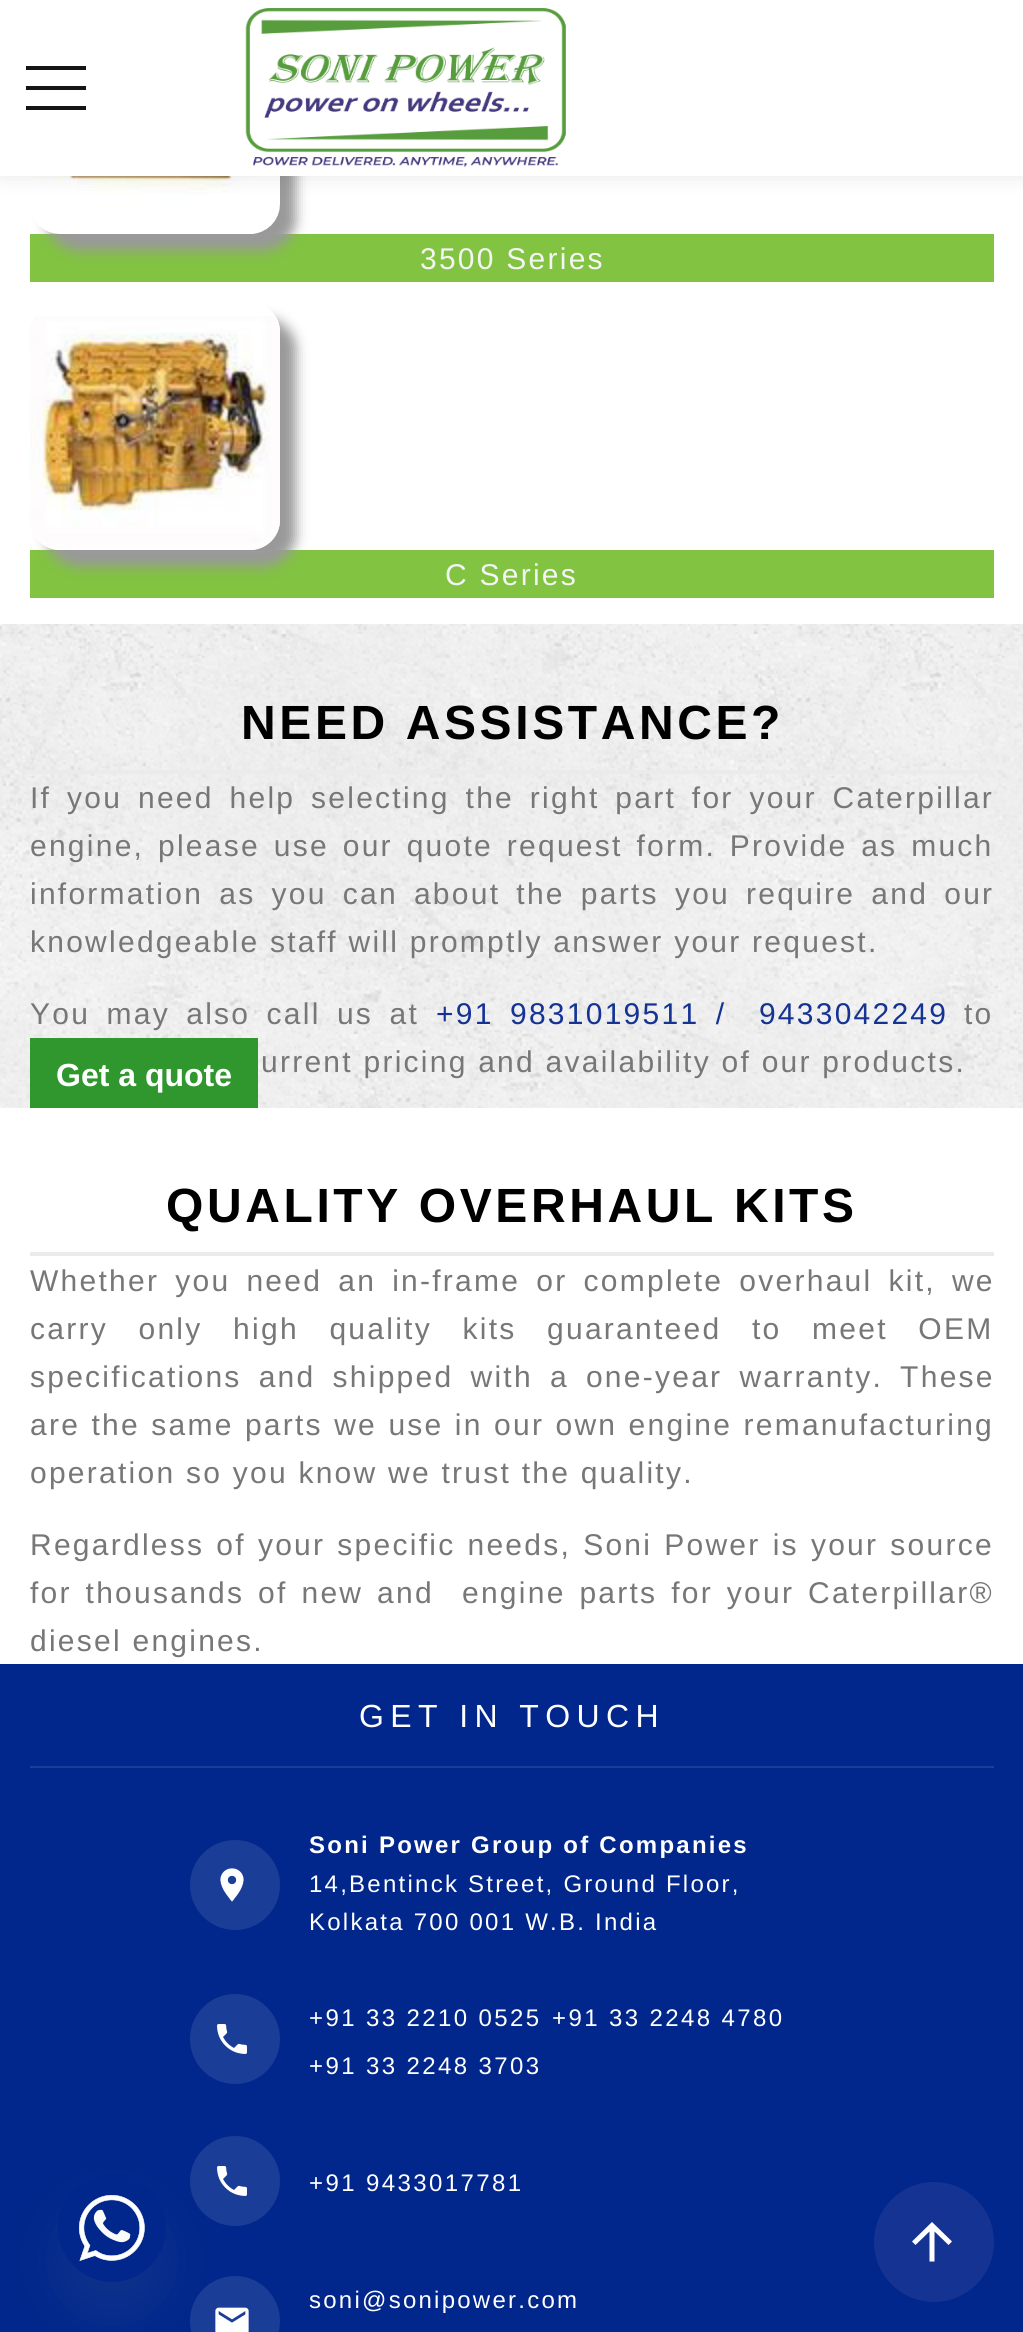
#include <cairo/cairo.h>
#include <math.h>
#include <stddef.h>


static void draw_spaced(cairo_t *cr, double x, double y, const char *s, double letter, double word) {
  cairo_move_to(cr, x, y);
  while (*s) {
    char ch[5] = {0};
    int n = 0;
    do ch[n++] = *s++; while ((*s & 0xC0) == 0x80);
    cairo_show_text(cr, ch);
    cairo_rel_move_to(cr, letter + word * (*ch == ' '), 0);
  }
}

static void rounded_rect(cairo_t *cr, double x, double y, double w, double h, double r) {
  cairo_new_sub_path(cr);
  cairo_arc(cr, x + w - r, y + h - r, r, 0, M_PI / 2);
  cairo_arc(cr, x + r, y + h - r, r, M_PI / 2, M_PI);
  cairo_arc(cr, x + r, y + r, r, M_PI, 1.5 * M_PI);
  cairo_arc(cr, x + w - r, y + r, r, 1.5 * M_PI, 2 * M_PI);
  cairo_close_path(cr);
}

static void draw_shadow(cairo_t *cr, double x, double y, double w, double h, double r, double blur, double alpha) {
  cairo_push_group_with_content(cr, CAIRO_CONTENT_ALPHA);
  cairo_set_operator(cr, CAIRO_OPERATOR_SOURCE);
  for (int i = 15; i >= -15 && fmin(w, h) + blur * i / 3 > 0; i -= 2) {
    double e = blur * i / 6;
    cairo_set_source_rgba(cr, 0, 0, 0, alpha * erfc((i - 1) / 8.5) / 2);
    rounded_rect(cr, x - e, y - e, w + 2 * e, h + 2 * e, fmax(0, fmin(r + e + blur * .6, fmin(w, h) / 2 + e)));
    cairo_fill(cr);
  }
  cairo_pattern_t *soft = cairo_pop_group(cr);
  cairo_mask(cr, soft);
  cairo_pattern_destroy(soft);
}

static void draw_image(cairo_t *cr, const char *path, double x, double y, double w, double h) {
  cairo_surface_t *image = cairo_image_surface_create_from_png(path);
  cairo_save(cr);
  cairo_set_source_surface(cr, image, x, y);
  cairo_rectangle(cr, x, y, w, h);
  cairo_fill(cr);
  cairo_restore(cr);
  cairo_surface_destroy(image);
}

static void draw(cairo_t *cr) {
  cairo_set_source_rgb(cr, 1, 1, 1);
  cairo_paint(cr);
  cairo_set_source_rgb(cr, 130 / 255.0, 195 / 255.0, 65 / 255.0);
  cairo_rectangle(cr, 30, 234, 964, 48);
  cairo_fill(cr);
  cairo_set_source_rgb(cr, 153 / 255.0, 153 / 255.0, 153 / 255.0);
  draw_shadow(cr, 46, 2, 250, 248, 30, 6, 1);
  draw_image(cr, "images/2.png", 30, 176, 250, 58);
  cairo_set_source_rgb(cr, 0, 0, 0);
  draw_shadow(cr, 0, 0, 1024, 176, 0, 10, 0.1);
  cairo_set_source_rgb(cr, 1, 1, 1);
  cairo_rectangle(cr, 0, 0, 1023, 176);
  cairo_fill(cr);
  cairo_set_source_rgb(cr, 21 / 255.0, 21 / 255.0, 21 / 255.0);
  cairo_rectangle(cr, 26, 86, 60, 4);
  cairo_fill(cr);
  cairo_rectangle(cr, 26, 66, 60, 4);
  cairo_fill(cr);
  cairo_rectangle(cr, 26, 106, 60, 4);
  cairo_fill(cr);
  draw_image(cr, "images/1.png", 245, 8, 321, 160);
  cairo_set_source_rgb(cr, 130 / 255.0, 195 / 255.0, 65 / 255.0);
  cairo_rectangle(cr, 30, 550, 964, 48);
  cairo_fill(cr);
  cairo_save(cr);
  cairo_set_fill_rule(cr, CAIRO_FILL_RULE_EVEN_ODD);
  cairo_new_path(cr);
  cairo_move_to(cr, 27, 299);
  cairo_line_to(cr, 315, 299);
  cairo_line_to(cr, 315, 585);
  cairo_line_to(cr, 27, 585);
  cairo_close_path(cr);
  cairo_move_to(cr, 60, 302);
  cairo_line_to(cr, 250, 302);
  cairo_curve_to(cr, 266.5, 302, 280, 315.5, 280, 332);
  cairo_line_to(cr, 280, 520);
  cairo_curve_to(cr, 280, 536.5, 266.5, 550, 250, 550);
  cairo_line_to(cr, 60, 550);
  cairo_curve_to(cr, 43.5, 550, 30, 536.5, 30, 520);
  cairo_line_to(cr, 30, 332);
  cairo_curve_to(cr, 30, 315.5, 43.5, 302, 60, 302);
  cairo_close_path(cr);
  cairo_clip(cr);
  cairo_set_source_rgb(cr, 153 / 255.0, 153 / 255.0, 153 / 255.0);
  draw_shadow(cr, 46, 318, 250, 248, 30, 6, 1);
  cairo_restore(cr);
  draw_image(cr, "images/3.png", 30, 316, 250, 234);
  draw_image(cr, "images/4.png", 0, 624, 1023, 484);
  cairo_set_source_rgb(cr, 235 / 255.0, 235 / 255.0, 235 / 255.0);
  cairo_rectangle(cr, 30, 770, 964, 4);
  cairo_fill(cr);
  cairo_set_source_rgb(cr, 47 / 255.0, 151 / 255.0, 46 / 255.0);
  cairo_rectangle(cr, 30, 1038, 228, 70);
  cairo_fill(cr);
  cairo_set_source_rgb(cr, 235 / 255.0, 235 / 255.0, 235 / 255.0);
  cairo_rectangle(cr, 30, 1252, 964, 4);
  cairo_fill(cr);
  cairo_set_source_rgb(cr, 1 / 255.0, 39 / 255.0, 140 / 255.0);
  cairo_rectangle(cr, 0, 1664, 1023, 668);
  cairo_fill(cr);
  cairo_set_source_rgb(cr, 26 / 255.0, 61 / 255.0, 152 / 255.0);
  cairo_rectangle(cr, 30, 1766, 964, 2);
  cairo_fill(cr);
  cairo_arc(cr, 235, 1885, 45, 0, 2 * M_PI);
  cairo_fill(cr);
  draw_image(cr, "images/5.png", 220, 1868, 24, 34);
  cairo_arc(cr, 235, 2039, 45, 0, 2 * M_PI);
  cairo_fill(cr);
  draw_image(cr, "images/6.png", 217, 2024, 30, 30);
  cairo_arc(cr, 235, 2181, 45, 0, 2 * M_PI);
  cairo_fill(cr);
  draw_image(cr, "images/6.png", 217, 2166, 30, 30);
  cairo_arc(cr, 235, 2321, 45, 0, 2 * M_PI);
  cairo_fill(cr);
  draw_image(cr, "images/7.png", 215, 2307, 34, 25);
  cairo_set_source_rgb(cr, 73 / 255.0, 104 / 255.0, 126 / 255.0);
  draw_shadow(cr, 58, 2206, 108, 108, 54, 24, 0.16);
  draw_image(cr, "images/8.png", 58, 2174, 108, 108);
  cairo_set_source_rgb(cr, 21 / 255.0, 51 / 255.0, 147 / 255.0);
  cairo_arc(cr, 934, 2242, 60, 0, 2 * M_PI);
  cairo_fill(cr);
  cairo_set_source_rgb(cr, 1, 1, 1);
  cairo_new_path(cr);
  cairo_move_to(cr, 934.5, 2261.5);
  cairo_line_to(cr, 929.5, 2261.5);
  cairo_line_to(cr, 929.5, 2231.5);
  cairo_line_to(cr, 915.5, 2245);
  cairo_line_to(cr, 912, 2241.5);
  cairo_line_to(cr, 932, 2222);
  cairo_line_to(cr, 952, 2241.5);
  cairo_line_to(cr, 948.5, 2245);
  cairo_line_to(cr, 934.5, 2231.5);
  cairo_close_path(cr);
  cairo_fill(cr);
  cairo_select_font_face(cr, "Liberation Sans", CAIRO_FONT_SLANT_NORMAL, CAIRO_FONT_WEIGHT_NORMAL);
  cairo_set_font_size(cr, 30);
  cairo_set_source_rgb(cr, 244 / 255.0, 244 / 255.0, 244 / 255.0);
  draw_spaced(cr, 420, 269, "3500 Series", 2.25, 0);
  draw_spaced(cr, 445, 585, "C Series", 2.25, 0);
  cairo_select_font_face(cr, "Liberation Sans", CAIRO_FONT_SLANT_NORMAL, CAIRO_FONT_WEIGHT_BOLD);
  cairo_set_font_size(cr, 48);
  cairo_set_source_rgb(cr, 0, 0, 0);
  draw_spaced(cr, 241, 739, "NEED ASSISTANCE?", 3.6, 0);
  cairo_select_font_face(cr, "Liberation Sans", CAIRO_FONT_SLANT_NORMAL, CAIRO_FONT_WEIGHT_NORMAL);
  cairo_set_font_size(cr, 30);
  cairo_set_source_rgb(cr, 119 / 255.0, 119 / 255.0, 119 / 255.0);
  draw_spaced(cr, 30, 808, "If you need help selecting the right part for your Caterpillar", 2.25, 5.25);
  draw_spaced(cr, 30, 856, "engine, please use our quote request form. Provide as much", 2.25, 3.25);
  draw_spaced(cr, 30, 904, "information as you can about the parts you require and our", 2.25, 5.5);
  draw_spaced(cr, 30, 952, "knowledgeable staff will promptly answer your request.", 2.25, 0);
  draw_spaced(cr, 30, 1024, "You may also call us at", 2.25, 5.75);
  cairo_set_source_rgb(cr, 21 / 255.0, 51 / 255.0, 147 / 255.0);
  draw_spaced(cr, 436, 1024, "+91 9831019511 /  9433042249", 2.25, 5.75);
  cairo_set_source_rgb(cr, 119 / 255.0, 119 / 255.0, 119 / 255.0);
  draw_spaced(cr, 964, 1024, "to", 2.25, 0);
  draw_spaced(cr, 261, 1072, "urrent pricing and availability of our products.", 2.25, 0);
  cairo_select_font_face(cr, "Liberation Sans", CAIRO_FONT_SLANT_NORMAL, CAIRO_FONT_WEIGHT_BOLD);
  cairo_set_font_size(cr, 32);
  cairo_set_source_rgb(cr, 1, 1, 1);
  cairo_move_to(cr, 56, 1086);
  cairo_show_text(cr, "Get a quote");
  cairo_set_font_size(cr, 48);
  cairo_set_source_rgb(cr, 0, 0, 0);
  draw_spaced(cr, 166, 1222, "QUALITY OVERHAUL KITS", 3.6, 0);
  cairo_select_font_face(cr, "Liberation Sans", CAIRO_FONT_SLANT_NORMAL, CAIRO_FONT_WEIGHT_NORMAL);
  cairo_set_font_size(cr, 30);
  cairo_set_source_rgb(cr, 119 / 255.0, 119 / 255.0, 119 / 255.0);
  draw_spaced(cr, 30, 1291, "Whether you need an in-frame or complete overhaul kit, we", 2.25, 5.5);
  draw_spaced(cr, 30, 1339, "carry only high quality kits guaranteed to meet OEM", 2.25, 20);
  draw_spaced(cr, 30, 1387, "specifications and shipped with a one-year warranty. These", 2.25, 6.5);
  draw_spaced(cr, 30, 1435, "are the same parts we use in our own engine remanufacturing", 2.25, 0.75);
  draw_spaced(cr, 30, 1483, "operation so you know we trust the quality.", 2.25, 0);
  draw_spaced(cr, 30, 1555, "Regardless of your specific needs, Soni Power is your source", 2.25, 1.5);
  draw_spaced(cr, 30, 1603, "for thousands of new and", 2.25, 3.25);
  draw_spaced(cr, 462, 1603, "engine parts for your Caterpillar®", 2.25, 3.25);
  draw_spaced(cr, 30, 1651, "diesel engines.", 2.25, 0);
  cairo_set_font_size(cr, 32);
  cairo_set_source_rgb(cr, 1, 1, 1);
  draw_spaced(cr, 359, 1727, "GET IN TOUCH", 6.4, 0);
  cairo_select_font_face(cr, "Liberation Sans", CAIRO_FONT_SLANT_NORMAL, CAIRO_FONT_WEIGHT_BOLD);
  cairo_set_font_size(cr, 24);
  draw_spaced(cr, 309, 1853, "Soni Power Group of Companies", 2.25, 0);
  cairo_select_font_face(cr, "Liberation Sans", CAIRO_FONT_SLANT_NORMAL, CAIRO_FONT_WEIGHT_NORMAL);
  draw_spaced(cr, 309, 1892, "14,Bentinck Street, Ground Floor,", 2.25, 0);
  draw_spaced(cr, 309, 1930, "Kolkata 700 001 W.B. India", 2.25, 0);
  draw_spaced(cr, 309, 2026, "+91 33 2210 0525", 2.4, 0);
  draw_spaced(cr, 552, 2026, "+91 33 2248 4780", 2.4, 0);
  draw_spaced(cr, 309, 2074, "+91 33 2248 3703", 2.4, 0);
  draw_spaced(cr, 309, 2191, "+91 9433017781", 2.4, 0);
  draw_spaced(cr, 309, 2308, "soni@sonipower.com", 2.25, 0);
}

int main(void) {
  cairo_surface_t *surface = cairo_image_surface_create(CAIRO_FORMAT_RGB24, 1023, 2332);
  cairo_t *cr = cairo_create(surface);
  cairo_font_options_t *options = cairo_font_options_create();
  cairo_font_options_set_hint_metrics(options, CAIRO_HINT_METRICS_OFF);
  cairo_font_options_set_hint_style(options, CAIRO_HINT_STYLE_NONE);
  cairo_set_font_options(cr, options);
  cairo_set_miter_limit(cr, 4);
  draw(cr);
  cairo_surface_write_to_png(surface, "out.png");
  cairo_font_options_destroy(options);
  cairo_destroy(cr);
  cairo_surface_destroy(surface);
  return 0;
}
